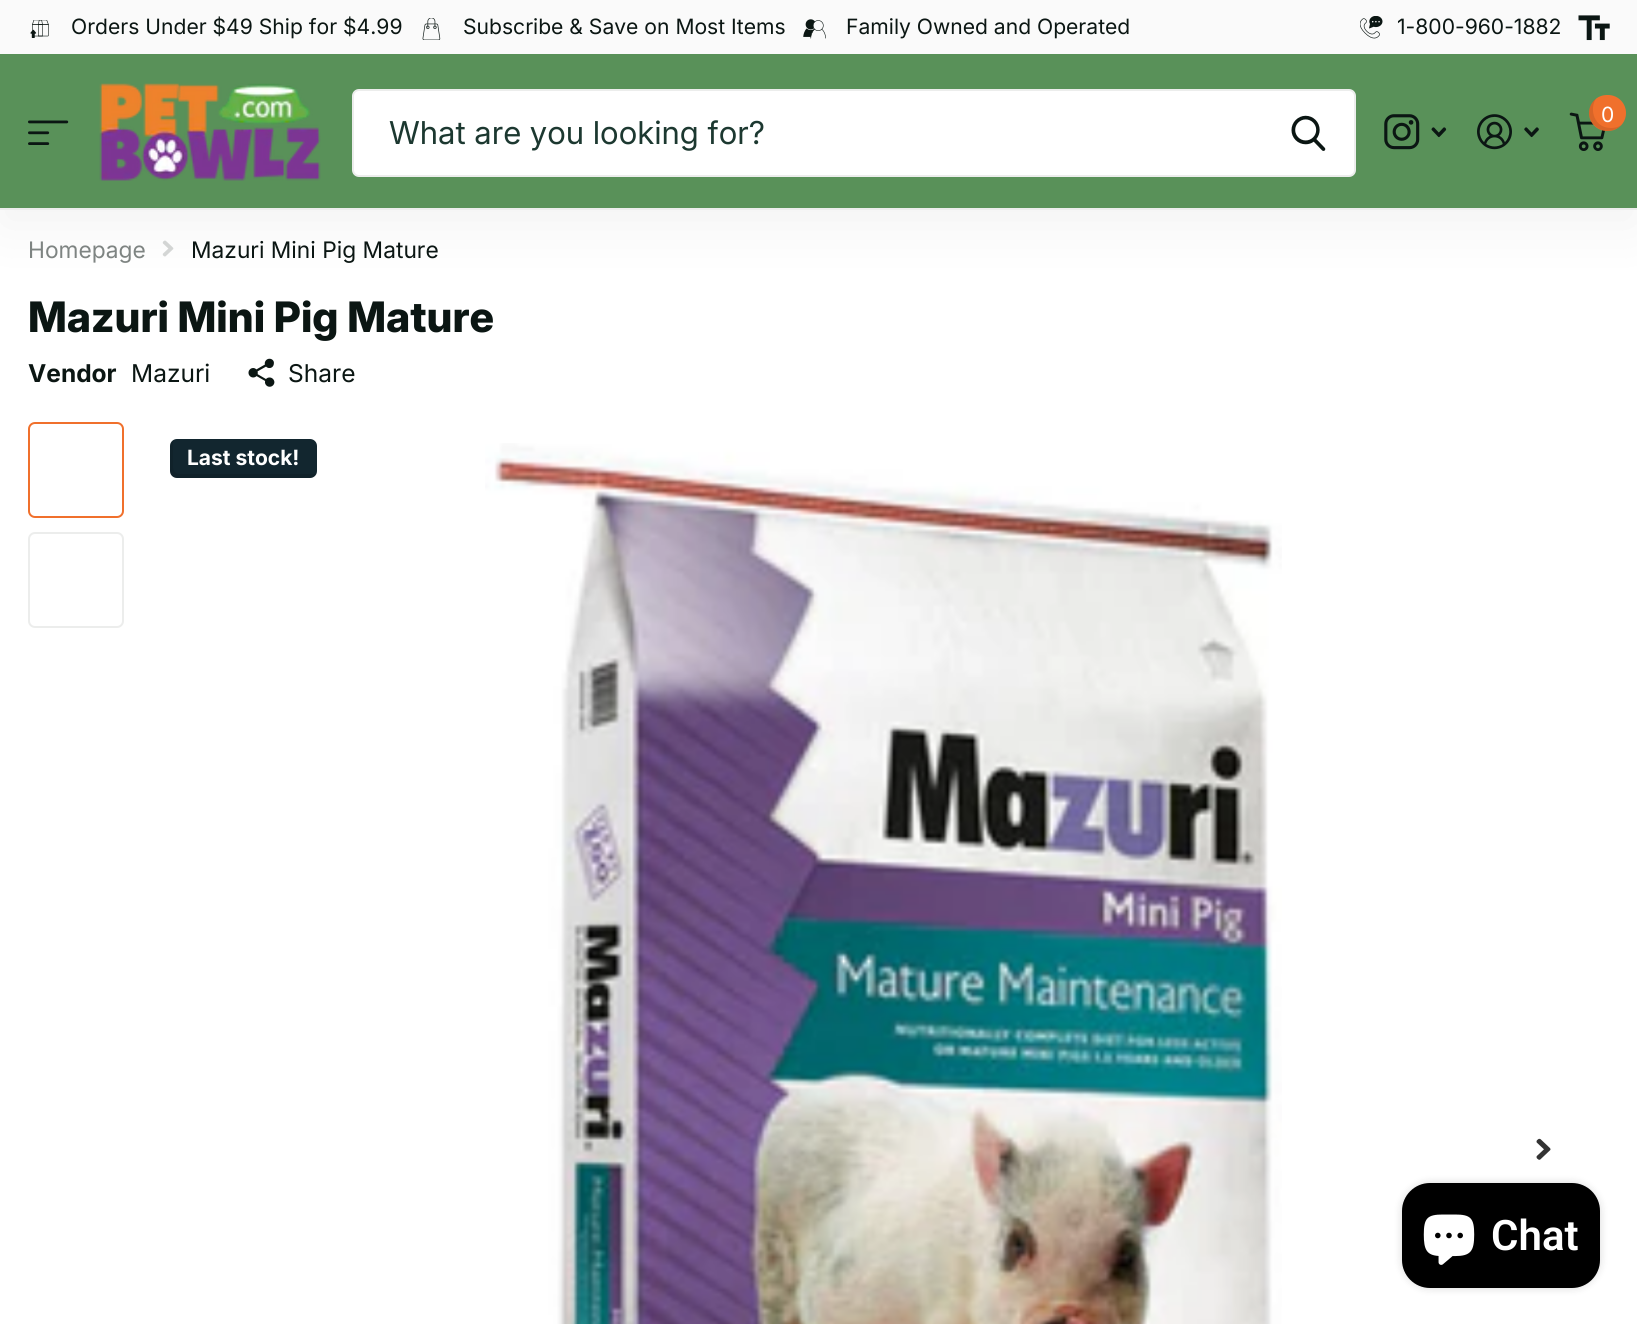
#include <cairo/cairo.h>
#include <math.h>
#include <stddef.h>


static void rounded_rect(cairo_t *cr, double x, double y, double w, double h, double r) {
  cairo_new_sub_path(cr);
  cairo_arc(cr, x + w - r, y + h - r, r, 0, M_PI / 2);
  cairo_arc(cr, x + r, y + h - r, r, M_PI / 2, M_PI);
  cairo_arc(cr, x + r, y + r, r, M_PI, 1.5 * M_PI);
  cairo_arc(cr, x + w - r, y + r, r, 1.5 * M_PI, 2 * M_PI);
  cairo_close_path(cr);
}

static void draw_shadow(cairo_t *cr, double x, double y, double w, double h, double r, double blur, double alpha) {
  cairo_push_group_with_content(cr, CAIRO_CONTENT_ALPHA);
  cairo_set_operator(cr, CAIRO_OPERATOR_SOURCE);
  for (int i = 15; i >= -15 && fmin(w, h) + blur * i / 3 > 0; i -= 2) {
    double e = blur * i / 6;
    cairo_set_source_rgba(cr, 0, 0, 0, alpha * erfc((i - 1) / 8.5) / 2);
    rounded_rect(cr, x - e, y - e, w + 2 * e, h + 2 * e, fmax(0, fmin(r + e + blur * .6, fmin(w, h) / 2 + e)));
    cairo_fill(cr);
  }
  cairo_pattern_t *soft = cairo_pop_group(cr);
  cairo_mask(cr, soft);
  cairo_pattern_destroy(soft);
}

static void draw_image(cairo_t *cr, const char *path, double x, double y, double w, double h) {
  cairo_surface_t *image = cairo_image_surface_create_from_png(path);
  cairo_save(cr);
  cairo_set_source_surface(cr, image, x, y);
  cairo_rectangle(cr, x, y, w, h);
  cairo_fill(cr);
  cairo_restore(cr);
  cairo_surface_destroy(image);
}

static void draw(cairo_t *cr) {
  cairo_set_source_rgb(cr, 1, 1, 1);
  cairo_paint(cr);
  draw_image(cr, "images/14.png", 162, 240, 12, 17);
  cairo_set_source_rgb(cr, 0, 0, 0);
  draw_shadow(cr, 0, 16, 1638, 210, 0, 28, 0.05);
  cairo_set_source_rgb(cr, 89 / 255.0, 145 / 255.0, 89 / 255.0);
  cairo_rectangle(cr, 0, 54, 1637, 154);
  cairo_fill(cr);
  cairo_set_source_rgb(cr, 236 / 255.0, 237 / 255.0, 236 / 255.0);
  cairo_rectangle(cr, 0, 208, 1637, 2);
  cairo_fill(cr);
  cairo_set_source_rgb(cr, 250 / 255.0, 250 / 255.0, 250 / 255.0);
  cairo_rectangle(cr, 0, 0, 1637, 54);
  cairo_fill(cr);
  draw_image(cr, "images/1.png", 30, 20, 19, 18);
  draw_image(cr, "images/2.png", 422, 18, 19, 22);
  draw_image(cr, "images/3.png", 803, 19, 23, 20);
  draw_image(cr, "images/4.png", 1360, 16, 23, 23);
  draw_image(cr, "images/5.png", 1578, 15, 32, 26);
  draw_image(cr, "images/6.png", 99, 83, 222, 98);
  draw_image(cr, "images/7.png", 1384, 114, 36, 36);
  draw_image(cr, "images/8.png", 1431, 127, 16, 11);
  draw_image(cr, "images/9.png", 1477, 114, 35, 36);
  draw_image(cr, "images/10.png", 1524, 127, 15, 11);
  draw_image(cr, "images/11.png", 1569, 112, 37, 39);
  cairo_set_source_rgb(cr, 240 / 255.0, 112 / 255.0, 44 / 255.0);
  rounded_rect(cr, 1589, 95, 37, 36, 18);
  cairo_fill(cr);
  cairo_set_source_rgba(cr, 0, 0, 0, 0.1);
  cairo_new_path(cr);
  cairo_move_to(cr, 1621.5, 125);
  cairo_curve_to(cr, 1618.5, 127, 1615, 128, 1611, 128);
  cairo_curve_to(cr, 1594, 128, 1589, 109.5, 1596, 98.5);
  cairo_curve_to(cr, 1587.5, 105, 1586.5, 118, 1594.5, 125.5);
  cairo_curve_to(cr, 1601.5, 133, 1614.5, 132.5, 1621.5, 125);
  cairo_close_path(cr);
  cairo_fill(cr);
  draw_image(cr, "images/12.png", 28, 120, 41, 25);
  cairo_set_source_rgb(cr, 1, 1, 1);
  rounded_rect(cr, 353, 90, 1002, 86, 6);
  cairo_fill_preserve(cr);
  cairo_set_source_rgb(cr, 236 / 255.0, 237 / 255.0, 236 / 255.0);
  cairo_stroke(cr);
  draw_image(cr, "images/13.png", 1291, 115, 35, 36);
  draw_image(cr, "images/15.png", 248, 358, 27, 29);
  rounded_rect(cr, 29, 423, 94, 94, 6);
  cairo_set_source_rgb(cr, 240 / 255.0, 112 / 255.0, 44 / 255.0);
  cairo_stroke(cr);
  rounded_rect(cr, 29, 533, 94, 94, 6);
  cairo_set_source_rgb(cr, 236 / 255.0, 237 / 255.0, 236 / 255.0);
  cairo_stroke(cr);
  draw_image(cr, "images/16.png", 1536, 1138, 15, 22);
  cairo_set_source_rgb(cr, 18 / 255.0, 38 / 255.0, 47 / 255.0);
  rounded_rect(cr, 170, 439, 147, 39, 7);
  cairo_fill(cr);
  cairo_set_source_rgba(cr, 0, 0, 0, 0.1);
  cairo_new_path(cr);
  cairo_move_to(cr, 174, 440);
  cairo_curve_to(cr, 172, 441, 170, 443, 170, 446);
  cairo_line_to(cr, 170, 471);
  cairo_curve_to(cr, 170, 475, 173, 478, 177, 478);
  cairo_line_to(cr, 310, 478);
  cairo_curve_to(cr, 313, 478, 316, 476, 317, 473);
  cairo_curve_to(cr, 316, 474, 314, 474, 313, 474);
  cairo_line_to(cr, 180, 474);
  cairo_curve_to(cr, 176, 474, 173, 471, 173, 467);
  cairo_line_to(cr, 173, 443);
  cairo_close_path(cr);
  cairo_fill(cr);
  draw_image(cr, "images/17.png", 485, 443, 797, 881);
  cairo_set_source_rgb(cr, 0, 0, 0);
  draw_shadow(cr, 1402, 1183, 198, 105, 28, 4.5, 0.15);
  cairo_set_source_rgb(cr, 0, 0, 0);
  rounded_rect(cr, 1402, 1183, 198, 105, 28);
  cairo_fill(cr);
  draw_image(cr, "images/18.png", 1423, 1214, 52, 51);
  cairo_select_font_face(cr, "Inter", CAIRO_FONT_SLANT_NORMAL, CAIRO_FONT_WEIGHT_NORMAL);
  cairo_set_font_size(cr, 21.1);
  cairo_set_source_rgb(cr, 11 / 255.0, 22 / 255.0, 19 / 255.0);
  cairo_move_to(cr, 71, 34);
  cairo_show_text(cr, "Orders Under $49 Ship for $4.99");
  cairo_move_to(cr, 463, 34);
  cairo_show_text(cr, "Subscribe & Save on Most Items");
  cairo_move_to(cr, 846, 34);
  cairo_show_text(cr, "Family Owned and Operated");
  cairo_move_to(cr, 1397, 34);
  cairo_show_text(cr, "1-800-960-1882");
  cairo_set_font_size(cr, 21);
  cairo_set_source_rgb(cr, 1, 1, 1);
  cairo_move_to(cr, 1601, 122);
  cairo_show_text(cr, "0");
  cairo_select_font_face(cr, "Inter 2", CAIRO_FONT_SLANT_NORMAL, CAIRO_FONT_WEIGHT_NORMAL);
  cairo_set_font_size(cr, 31.5);
  cairo_set_source_rgb(cr, 28 / 255.0, 56 / 255.0, 48 / 255.0);
  cairo_move_to(cr, 389, 144);
  cairo_show_text(cr, "What are you looking for?");
  cairo_select_font_face(cr, "Inter", CAIRO_FONT_SLANT_NORMAL, CAIRO_FONT_WEIGHT_NORMAL);
  cairo_set_font_size(cr, 22.75);
  cairo_set_source_rgb(cr, 126 / 255.0, 132 / 255.0, 130 / 255.0);
  cairo_move_to(cr, 28, 258);
  cairo_show_text(cr, "Homepage");
  cairo_set_source_rgb(cr, 11 / 255.0, 22 / 255.0, 19 / 255.0);
  cairo_move_to(cr, 191, 258);
  cairo_show_text(cr, "Mazuri Mini Pig Mature");
  cairo_select_font_face(cr, "Inter ExtraBold", CAIRO_FONT_SLANT_NORMAL, CAIRO_FONT_WEIGHT_NORMAL);
  cairo_set_font_size(cr, 42);
  cairo_move_to(cr, 28, 332);
  cairo_show_text(cr, "Mazuri Mini Pig Mature");
  cairo_select_font_face(cr, "Inter", CAIRO_FONT_SLANT_NORMAL, CAIRO_FONT_WEIGHT_BOLD);
  cairo_set_font_size(cr, 24.5);
  cairo_move_to(cr, 28, 382);
  cairo_show_text(cr, "Vendor");
  cairo_select_font_face(cr, "Inter", CAIRO_FONT_SLANT_NORMAL, CAIRO_FONT_WEIGHT_NORMAL);
  cairo_move_to(cr, 131, 382);
  cairo_show_text(cr, "Mazuri");
  cairo_move_to(cr, 288, 382);
  cairo_show_text(cr, "Share");
  cairo_select_font_face(cr, "Inter", CAIRO_FONT_SLANT_NORMAL, CAIRO_FONT_WEIGHT_BOLD);
  cairo_set_font_size(cr, 21);
  cairo_set_source_rgb(cr, 1, 1, 1);
  cairo_move_to(cr, 187, 465);
  cairo_show_text(cr, "Last stock!");
  cairo_select_font_face(cr, "Roboto SemiBold", CAIRO_FONT_SLANT_NORMAL, CAIRO_FONT_WEIGHT_NORMAL);
  cairo_set_font_size(cr, 42);
  cairo_move_to(cr, 1491, 1250);
  cairo_show_text(cr, "Chat");
}

int main(void) {
  cairo_surface_t *surface = cairo_image_surface_create(CAIRO_FORMAT_RGB24, 1637, 1324);
  cairo_t *cr = cairo_create(surface);
  cairo_font_options_t *options = cairo_font_options_create();
  cairo_font_options_set_hint_metrics(options, CAIRO_HINT_METRICS_OFF);
  cairo_font_options_set_hint_style(options, CAIRO_HINT_STYLE_NONE);
  cairo_set_font_options(cr, options);
  cairo_set_miter_limit(cr, 4);
  draw(cr);
  cairo_surface_write_to_png(surface, "out.png");
  cairo_font_options_destroy(options);
  cairo_destroy(cr);
  cairo_surface_destroy(surface);
  return 0;
}
